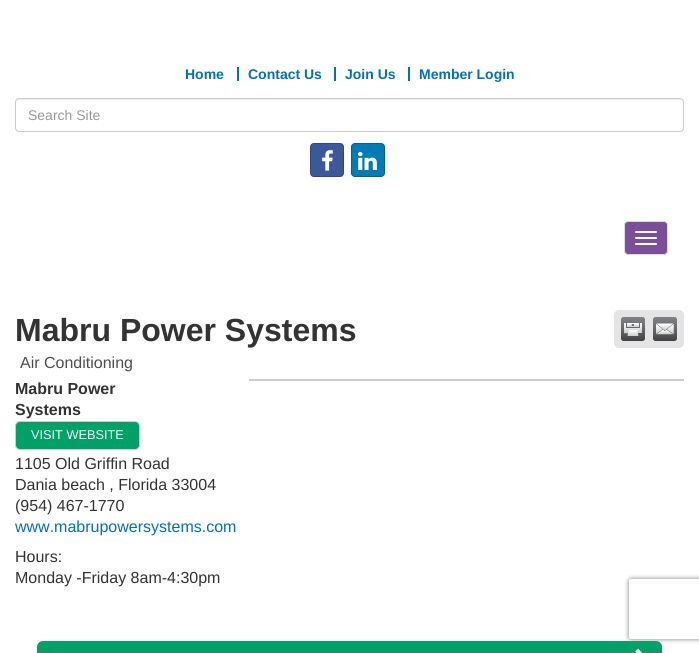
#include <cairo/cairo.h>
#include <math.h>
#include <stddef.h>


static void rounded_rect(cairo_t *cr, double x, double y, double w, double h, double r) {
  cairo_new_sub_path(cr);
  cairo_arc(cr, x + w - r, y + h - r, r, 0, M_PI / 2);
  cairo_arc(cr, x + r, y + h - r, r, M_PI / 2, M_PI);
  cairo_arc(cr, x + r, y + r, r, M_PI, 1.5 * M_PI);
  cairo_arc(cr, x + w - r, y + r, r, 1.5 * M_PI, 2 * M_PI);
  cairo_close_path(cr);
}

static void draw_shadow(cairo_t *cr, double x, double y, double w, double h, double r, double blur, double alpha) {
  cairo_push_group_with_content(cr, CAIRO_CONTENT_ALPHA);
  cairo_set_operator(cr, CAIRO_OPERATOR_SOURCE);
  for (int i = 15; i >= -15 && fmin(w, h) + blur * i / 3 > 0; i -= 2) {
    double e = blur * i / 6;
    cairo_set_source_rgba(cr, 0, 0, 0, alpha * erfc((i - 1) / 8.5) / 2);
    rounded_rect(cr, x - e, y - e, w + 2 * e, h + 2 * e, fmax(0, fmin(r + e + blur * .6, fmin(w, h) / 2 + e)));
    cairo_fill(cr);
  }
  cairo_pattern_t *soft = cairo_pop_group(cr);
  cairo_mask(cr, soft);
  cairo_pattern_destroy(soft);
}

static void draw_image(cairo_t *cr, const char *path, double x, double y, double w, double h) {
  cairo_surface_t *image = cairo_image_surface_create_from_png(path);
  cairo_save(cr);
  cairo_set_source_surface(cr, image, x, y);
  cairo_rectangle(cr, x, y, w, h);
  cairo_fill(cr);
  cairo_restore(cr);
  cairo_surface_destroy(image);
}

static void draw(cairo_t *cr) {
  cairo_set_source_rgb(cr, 1, 1, 1);
  cairo_paint(cr);
  cairo_set_source_rgb(cr, 0, 113 / 255.0, 188 / 255.0);
  cairo_rectangle(cr, 237, 67, 2, 14);
  cairo_fill(cr);
  cairo_rectangle(cr, 334, 67, 2, 14);
  cairo_fill(cr);
  cairo_rectangle(cr, 408, 67, 2, 14);
  cairo_fill(cr);
  cairo_set_source_rgb(cr, 236 / 255.0, 236 / 255.0, 236 / 255.0);
  cairo_new_path(cr);
  cairo_move_to(cr, 19, 100);
  cairo_line_to(cr, 680, 100);
  cairo_curve_to(cr, 682, 100, 683, 101, 683, 103);
  cairo_line_to(cr, 683, 102);
  cairo_curve_to(cr, 683, 100, 682, 99, 680, 99);
  cairo_line_to(cr, 19, 99);
  cairo_curve_to(cr, 17, 99, 16, 100, 16, 102);
  cairo_line_to(cr, 16, 103);
  cairo_curve_to(cr, 16, 101, 17, 100, 19, 100);
  cairo_close_path(cr);
  cairo_fill(cr);
  rounded_rect(cr, 15.5, 98.5, 668, 33, 3.5);
  cairo_set_source_rgb(cr, 204 / 255.0, 204 / 255.0, 204 / 255.0);
  cairo_set_line_width(cr, 1);
  cairo_stroke(cr);
  cairo_set_source_rgb(cr, 59 / 255.0, 89 / 255.0, 152 / 255.0);
  rounded_rect(cr, 310, 143, 34, 34, 4);
  cairo_fill(cr);
  rounded_rect(cr, 310.5, 143.5, 33, 33, 3.5);
  cairo_set_source_rgba(cr, 0, 0, 0, 0.2);
  cairo_stroke(cr);
  draw_image(cr, "images/1.png", 322, 150, 11, 21);
  cairo_set_source_rgb(cr, 0, 123 / 255.0, 182 / 255.0);
  rounded_rect(cr, 351, 143, 34, 34, 4);
  cairo_fill(cr);
  rounded_rect(cr, 351.5, 143.5, 33, 33, 3.5);
  cairo_set_source_rgba(cr, 0, 0, 0, 0.2);
  cairo_stroke(cr);
  draw_image(cr, "images/2.png", 358, 152, 19, 18);
  cairo_set_source_rgb(cr, 122 / 255.0, 78 / 255.0, 153 / 255.0);
  rounded_rect(cr, 624.5, 221.5, 43, 33, 3.5);
  cairo_fill_preserve(cr);
  cairo_set_source_rgb(cr, 221 / 255.0, 221 / 255.0, 221 / 255.0);
  cairo_stroke(cr);
  cairo_set_source_rgb(cr, 1, 1, 1);
  rounded_rect(cr, 635, 231, 22, 2, 1);
  cairo_fill(cr);
  rounded_rect(cr, 635, 237, 22, 2, 1);
  cairo_fill(cr);
  rounded_rect(cr, 635, 243, 22, 2, 1);
  cairo_fill(cr);
  cairo_set_source_rgb(cr, 228 / 255.0, 228 / 255.0, 228 / 255.0);
  rounded_rect(cr, 614, 310, 70, 38, 5);
  cairo_fill(cr);
  draw_image(cr, "images/3.png", 621, 317, 24, 24);
  draw_image(cr, "images/4.png", 653, 317, 24, 24);
  cairo_set_source_rgb(cr, 204 / 255.0, 204 / 255.0, 204 / 255.0);
  cairo_rectangle(cr, 249, 379, 435, 2);
  cairo_fill(cr);
  cairo_set_source_rgb(cr, 0, 161 / 255.0, 105 / 255.0);
  rounded_rect(cr, 15.5, 421.5, 124, 28, 4.5);
  cairo_fill_preserve(cr);
  cairo_set_source_rgb(cr, 204 / 255.0, 204 / 255.0, 204 / 255.0);
  cairo_stroke(cr);
  cairo_set_source_rgb(cr, 0, 161 / 255.0, 105 / 255.0);
  rounded_rect(cr, 36, 640, 627, 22, 7);
  cairo_fill_preserve(cr);
  cairo_set_source_rgb(cr, 1, 1, 1);
  cairo_set_line_width(cr, 2);
  cairo_stroke(cr);
  draw_image(cr, "images/5.png", 635, 648, 8, 5);
  cairo_save(cr);
  cairo_set_fill_rule(cr, CAIRO_FILL_RULE_EVEN_ODD);
  cairo_new_path(cr);
  cairo_move_to(cr, 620, 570);
  cairo_line_to(cr, 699, 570);
  cairo_line_to(cr, 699, 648);
  cairo_line_to(cr, 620, 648);
  cairo_close_path(cr);
  cairo_move_to(cr, 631, 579);
  cairo_line_to(cr, 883, 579);
  cairo_curve_to(cr, 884, 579, 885, 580, 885, 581);
  cairo_line_to(cr, 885, 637);
  cairo_curve_to(cr, 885, 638, 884, 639, 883, 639);
  cairo_line_to(cr, 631, 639);
  cairo_curve_to(cr, 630, 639, 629, 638, 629, 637);
  cairo_line_to(cr, 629, 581);
  cairo_curve_to(cr, 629, 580, 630, 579, 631, 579);
  cairo_close_path(cr);
  cairo_clip(cr);
  cairo_set_source_rgb(cr, 128 / 255.0, 128 / 255.0, 128 / 255.0);
  draw_shadow(cr, 629, 579, 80, 60, 2, 2.5, 1);
  cairo_restore(cr);
  cairo_select_font_face(cr, "Liberation Sans", CAIRO_FONT_SLANT_NORMAL, CAIRO_FONT_WEIGHT_BOLD);
  cairo_set_font_size(cr, 14);
  cairo_set_source_rgb(cr, 0, 113 / 255.0, 188 / 255.0);
  cairo_move_to(cr, 185, 79);
  cairo_show_text(cr, "Home");
  cairo_move_to(cr, 248, 79);
  cairo_show_text(cr, "Contact Us");
  cairo_move_to(cr, 345, 79);
  cairo_show_text(cr, "Join Us");
  cairo_move_to(cr, 419, 79);
  cairo_show_text(cr, "Member Login");
  cairo_select_font_face(cr, "Liberation Sans", CAIRO_FONT_SLANT_NORMAL, CAIRO_FONT_WEIGHT_NORMAL);
  cairo_set_source_rgb(cr, 153 / 255.0, 153 / 255.0, 153 / 255.0);
  cairo_move_to(cr, 28, 120);
  cairo_show_text(cr, "Search Site");
  cairo_select_font_face(cr, "Liberation Sans", CAIRO_FONT_SLANT_NORMAL, CAIRO_FONT_WEIGHT_BOLD);
  cairo_set_font_size(cr, 32);
  cairo_set_source_rgb(cr, 51 / 255.0, 51 / 255.0, 51 / 255.0);
  cairo_move_to(cr, 15, 341);
  cairo_show_text(cr, "Mabru Power Systems");
  cairo_select_font_face(cr, "Liberation Sans", CAIRO_FONT_SLANT_NORMAL, CAIRO_FONT_WEIGHT_NORMAL);
  cairo_set_font_size(cr, 16);
  cairo_set_source_rgb(cr, 77 / 255.0, 77 / 255.0, 77 / 255.0);
  cairo_move_to(cr, 20, 368);
  cairo_show_text(cr, "Air Conditioning");
  cairo_select_font_face(cr, "Liberation Sans", CAIRO_FONT_SLANT_NORMAL, CAIRO_FONT_WEIGHT_BOLD);
  cairo_set_source_rgb(cr, 51 / 255.0, 51 / 255.0, 51 / 255.0);
  cairo_move_to(cr, 15, 394);
  cairo_show_text(cr, "Mabru Power");
  cairo_move_to(cr, 15, 415);
  cairo_show_text(cr, "Systems");
  cairo_select_font_face(cr, "Liberation Sans", CAIRO_FONT_SLANT_NORMAL, CAIRO_FONT_WEIGHT_NORMAL);
  cairo_set_font_size(cr, 12.75);
  cairo_set_source_rgb(cr, 1, 1, 1);
  cairo_move_to(cr, 31, 439);
  cairo_show_text(cr, "VISIT WEBSITE");
  cairo_set_font_size(cr, 16);
  cairo_set_source_rgb(cr, 51 / 255.0, 51 / 255.0, 51 / 255.0);
  cairo_move_to(cr, 15, 469);
  cairo_show_text(cr, "1105 Old Griffin Road");
  cairo_move_to(cr, 15, 490);
  cairo_show_text(cr, "Dania beach , Florida 33004");
  cairo_move_to(cr, 15, 511);
  cairo_show_text(cr, "(954) 467-1770");
  cairo_set_source_rgb(cr, 0, 113 / 255.0, 188 / 255.0);
  cairo_move_to(cr, 15, 532);
  cairo_show_text(cr, "www.mabrupowersystems.com");
  cairo_set_source_rgb(cr, 51 / 255.0, 51 / 255.0, 51 / 255.0);
  cairo_move_to(cr, 15, 562);
  cairo_show_text(cr, "Hours:");
  cairo_move_to(cr, 15, 583);
  cairo_show_text(cr, "Monday -Friday 8am-4:30pm");
}

int main(void) {
  cairo_surface_t *surface = cairo_image_surface_create(CAIRO_FORMAT_RGB24, 699, 653);
  cairo_t *cr = cairo_create(surface);
  cairo_font_options_t *options = cairo_font_options_create();
  cairo_font_options_set_hint_metrics(options, CAIRO_HINT_METRICS_OFF);
  cairo_font_options_set_hint_style(options, CAIRO_HINT_STYLE_NONE);
  cairo_set_font_options(cr, options);
  cairo_set_miter_limit(cr, 4);
  draw(cr);
  cairo_surface_write_to_png(surface, "out.png");
  cairo_font_options_destroy(options);
  cairo_destroy(cr);
  cairo_surface_destroy(surface);
  return 0;
}
